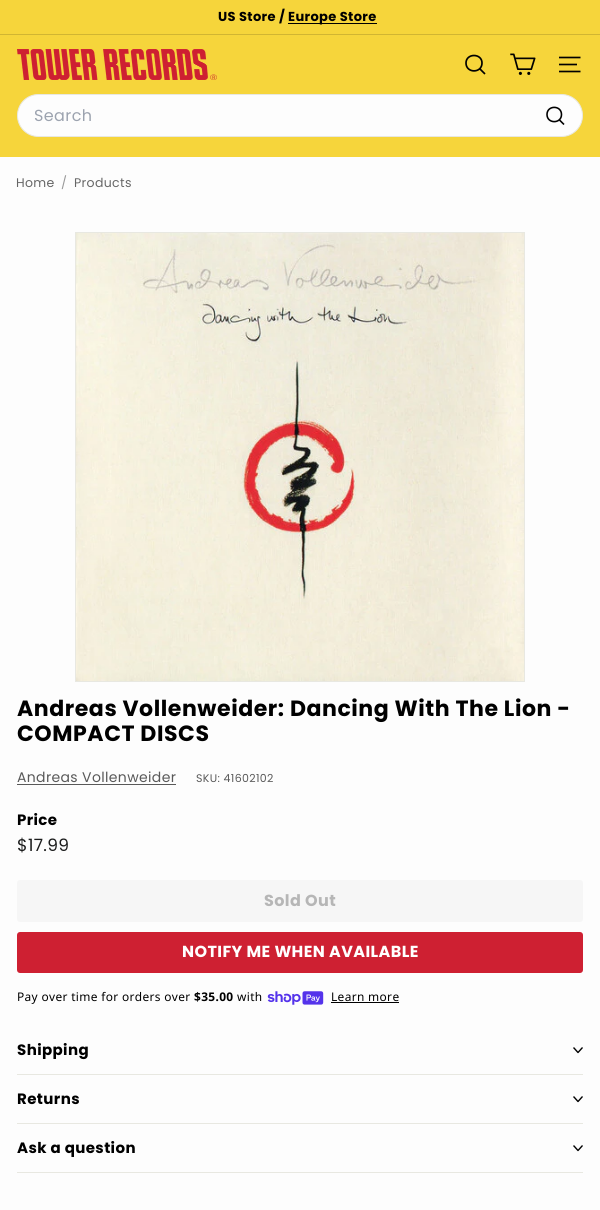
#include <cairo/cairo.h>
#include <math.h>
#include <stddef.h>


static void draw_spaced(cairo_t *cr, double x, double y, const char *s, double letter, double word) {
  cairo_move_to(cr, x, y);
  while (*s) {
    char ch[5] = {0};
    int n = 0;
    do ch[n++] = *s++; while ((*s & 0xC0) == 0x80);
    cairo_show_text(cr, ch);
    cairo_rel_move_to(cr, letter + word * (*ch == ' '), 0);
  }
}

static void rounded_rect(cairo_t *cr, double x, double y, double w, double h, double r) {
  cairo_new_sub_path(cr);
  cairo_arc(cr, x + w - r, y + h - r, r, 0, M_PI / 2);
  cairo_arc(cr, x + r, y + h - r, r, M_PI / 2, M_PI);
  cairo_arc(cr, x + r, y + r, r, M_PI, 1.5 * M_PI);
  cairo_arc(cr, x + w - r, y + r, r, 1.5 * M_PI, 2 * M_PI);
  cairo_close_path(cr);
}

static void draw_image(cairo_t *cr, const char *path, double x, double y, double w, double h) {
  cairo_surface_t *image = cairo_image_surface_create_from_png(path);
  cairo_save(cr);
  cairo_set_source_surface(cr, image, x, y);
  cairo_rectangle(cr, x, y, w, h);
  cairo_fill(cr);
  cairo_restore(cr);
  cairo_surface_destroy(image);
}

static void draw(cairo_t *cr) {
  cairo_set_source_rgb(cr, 253 / 255.0, 253 / 255.0, 253 / 255.0);
  cairo_paint(cr);
  cairo_set_source_rgb(cr, 246 / 255.0, 213 / 255.0, 59 / 255.0);
  cairo_rectangle(cr, 0, 0, 600, 34);
  cairo_fill(cr);
  cairo_set_source_rgb(cr, 0, 0, 0);
  cairo_rectangle(cr, 288, 23, 89, 1);
  cairo_fill(cr);
  cairo_set_source_rgb(cr, 209 / 255.0, 181 / 255.0, 50 / 255.0);
  cairo_rectangle(cr, 0, 34, 600, 1);
  cairo_fill(cr);
  cairo_set_source_rgb(cr, 246 / 255.0, 213 / 255.0, 59 / 255.0);
  cairo_rectangle(cr, 0, 35, 600, 122);
  cairo_fill(cr);
  draw_image(cr, "images/1.png", 17, 49, 200, 31);
  cairo_new_path(cr);
  cairo_move_to(cr, 482, 63);
  cairo_curve_to(cr, 482, 73.5, 466, 73.5, 466, 63);
  cairo_curve_to(cr, 466, 53, 482, 53, 482, 63);
  cairo_move_to(cr, 485, 74);
  cairo_line_to(cr, 479.5, 68.5);
  cairo_set_source_rgb(cr, 0, 0, 0);
  cairo_set_line_width(cr, 1.7);
  cairo_set_line_join(cr, CAIRO_LINE_JOIN_ROUND);
  cairo_stroke(cr);
  draw_image(cr, "images/2.png", 510, 53, 26, 22);
  cairo_new_path(cr);
  cairo_move_to(cr, 559, 57.5);
  cairo_line_to(cr, 580.5, 57.5);
  cairo_move_to(cr, 559, 64.5);
  cairo_line_to(cr, 577, 64.5);
  cairo_move_to(cr, 559, 71.5);
  cairo_line_to(cr, 580.5, 71.5);
  cairo_stroke(cr);
  cairo_set_source_rgb(cr, 253 / 255.0, 253 / 255.0, 253 / 255.0);
  rounded_rect(cr, 17.5, 94.5, 565, 42, 21);
  cairo_fill_preserve(cr);
  cairo_set_source_rgb(cr, 232 / 255.0, 232 / 255.0, 225 / 255.0);
  cairo_set_line_width(cr, 1);
  cairo_set_line_join(cr, CAIRO_LINE_JOIN_MITER);
  cairo_stroke(cr);
  cairo_new_path(cr);
  cairo_move_to(cr, 561.5, 114.5);
  cairo_curve_to(cr, 561.5, 124, 547, 124, 547, 114.5);
  cairo_curve_to(cr, 547, 105, 561.5, 105, 561.5, 114.5);
  cairo_move_to(cr, 564, 124.5);
  cairo_line_to(cr, 559.5, 120);
  cairo_set_source_rgb(cr, 0, 0, 0);
  cairo_set_line_width(cr, 1.6);
  cairo_set_line_join(cr, CAIRO_LINE_JOIN_ROUND);
  cairo_stroke(cr);
  cairo_rectangle(cr, 75.5, 232.5, 449, 449);
  cairo_set_source_rgb(cr, 232 / 255.0, 232 / 255.0, 225 / 255.0);
  cairo_set_line_width(cr, 1);
  cairo_set_line_join(cr, CAIRO_LINE_JOIN_MITER);
  cairo_stroke(cr);
  draw_image(cr, "images/3.png", 76, 233, 448, 448);
  cairo_set_source_rgb(cr, 89 / 255.0, 89 / 255.0, 89 / 255.0);
  cairo_rectangle(cr, 17, 784, 159, 1);
  cairo_fill(cr);
  cairo_set_source_rgb(cr, 246 / 255.0, 246 / 255.0, 246 / 255.0);
  rounded_rect(cr, 17, 880, 566, 42, 3);
  cairo_fill(cr);
  cairo_set_source_rgb(cr, 206 / 255.0, 32 / 255.0, 50 / 255.0);
  rounded_rect(cr, 17, 932, 566, 41, 3);
  cairo_fill(cr);
  draw_image(cr, "images/4.png", 267, 991, 57, 14);
  cairo_set_source_rgb(cr, 0, 0, 0);
  cairo_rectangle(cr, 331, 1002, 68, 1);
  cairo_fill(cr);
  cairo_set_source_rgb(cr, 232 / 255.0, 232 / 255.0, 225 / 255.0);
  cairo_rectangle(cr, 17, 1074, 566, 1);
  cairo_fill(cr);
  cairo_new_path(cr);
  cairo_move_to(cr, 573.5, 1047.5);
  cairo_line_to(cr, 578, 1052.5);
  cairo_line_to(cr, 582.5, 1047.5);
  cairo_set_source_rgb(cr, 0, 0, 0);
  cairo_set_line_width(cr, 1.4);
  cairo_set_line_join(cr, CAIRO_LINE_JOIN_ROUND);
  cairo_stroke(cr);
  cairo_set_source_rgb(cr, 232 / 255.0, 232 / 255.0, 225 / 255.0);
  cairo_rectangle(cr, 17, 1123, 566, 1);
  cairo_fill(cr);
  cairo_new_path(cr);
  cairo_move_to(cr, 573.5, 1096.5);
  cairo_line_to(cr, 578, 1101.5);
  cairo_line_to(cr, 582.5, 1096.5);
  cairo_set_source_rgb(cr, 0, 0, 0);
  cairo_stroke(cr);
  cairo_set_source_rgb(cr, 232 / 255.0, 232 / 255.0, 225 / 255.0);
  cairo_rectangle(cr, 17, 1172, 566, 1);
  cairo_fill(cr);
  cairo_new_path(cr);
  cairo_move_to(cr, 573.5, 1145.5);
  cairo_line_to(cr, 578, 1150.5);
  cairo_line_to(cr, 582.5, 1145.5);
  cairo_set_source_rgb(cr, 0, 0, 0);
  cairo_stroke(cr);
  cairo_select_font_face(cr, "Poppins", CAIRO_FONT_SLANT_NORMAL, CAIRO_FONT_WEIGHT_BOLD);
  cairo_set_font_size(cr, 13);
  draw_spaced(cr, 218, 21, "US Store /", 0.35, 0);
  draw_spaced(cr, 288, 21, "Europe Store", 0.35, 0);
  cairo_select_font_face(cr, "Poppins", CAIRO_FONT_SLANT_NORMAL, CAIRO_FONT_WEIGHT_NORMAL);
  cairo_set_font_size(cr, 16);
  cairo_set_source_rgb(cr, 156 / 255.0, 163 / 255.0, 175 / 255.0);
  draw_spaced(cr, 34, 121, "Search", 0.4, 0);
  cairo_set_font_size(cr, 12.5);
  cairo_set_source_rgb(cr, 102 / 255.0, 102 / 255.0, 102 / 255.0);
  draw_spaced(cr, 16, 187, "Home", 0.35, 0);
  cairo_set_source_rgb(cr, 153 / 255.0, 153 / 255.0, 153 / 255.0);
  draw_spaced(cr, 61, 187, "/", 0.35, 0);
  cairo_set_source_rgb(cr, 102 / 255.0, 102 / 255.0, 102 / 255.0);
  draw_spaced(cr, 74, 187, "Products", 0.35, 0);
  cairo_select_font_face(cr, "Poppins", CAIRO_FONT_SLANT_NORMAL, CAIRO_FONT_WEIGHT_BOLD);
  cairo_set_font_size(cr, 22.05);
  cairo_set_source_rgb(cr, 0, 0, 0);
  draw_spaced(cr, 17, 716, "Andreas Vollenweider: Dancing With The Lion -", 0.55, 0);
  draw_spaced(cr, 17, 741, "COMPACT DISCS", 0.55, 0);
  cairo_select_font_face(cr, "Poppins", CAIRO_FONT_SLANT_NORMAL, CAIRO_FONT_WEIGHT_NORMAL);
  cairo_set_font_size(cr, 14);
  cairo_set_source_rgb(cr, 89 / 255.0, 89 / 255.0, 89 / 255.0);
  draw_spaced(cr, 17, 782, "Andreas Vollenweider", 0.35, 0);
  cairo_set_font_size(cr, 11);
  draw_spaced(cr, 196, 782, "SKU: 41602102", 0.35, 0);
  cairo_select_font_face(cr, "Poppins", CAIRO_FONT_SLANT_NORMAL, CAIRO_FONT_WEIGHT_BOLD);
  cairo_set_font_size(cr, 15);
  cairo_set_source_rgb(cr, 0, 0, 0);
  draw_spaced(cr, 17, 825, "Price", 0.35, 0);
  cairo_select_font_face(cr, "Poppins", CAIRO_FONT_SLANT_NORMAL, CAIRO_FONT_WEIGHT_NORMAL);
  cairo_set_font_size(cr, 17);
  cairo_set_source_rgb(cr, 28 / 255.0, 29 / 255.0, 29 / 255.0);
  draw_spaced(cr, 17, 851, "$17.99", 0.35, 0);
  cairo_select_font_face(cr, "Poppins", CAIRO_FONT_SLANT_NORMAL, CAIRO_FONT_WEIGHT_BOLD);
  cairo_set_font_size(cr, 16);
  cairo_set_source_rgb(cr, 182 / 255.0, 182 / 255.0, 182 / 255.0);
  draw_spaced(cr, 264, 906, "Sold Out", 0.4, 0);
  cairo_set_source_rgb(cr, 1, 1, 1);
  draw_spaced(cr, 182, 957, "NOTIFY ME WHEN AVAILABLE", 0.4, 0);
  cairo_select_font_face(cr, "Noto Sans", CAIRO_FONT_SLANT_NORMAL, CAIRO_FONT_WEIGHT_NORMAL);
  cairo_set_font_size(cr, 11.9);
  cairo_set_source_rgb(cr, 0, 0, 0);
  draw_spaced(cr, 17, 1001, "Pay over time for orders over", 0.35, 0);
  cairo_select_font_face(cr, "Noto Sans", CAIRO_FONT_SLANT_NORMAL, CAIRO_FONT_WEIGHT_BOLD);
  draw_spaced(cr, 194, 1001, "$35.00", 0.35, 0);
  cairo_select_font_face(cr, "Noto Sans", CAIRO_FONT_SLANT_NORMAL, CAIRO_FONT_WEIGHT_NORMAL);
  draw_spaced(cr, 237, 1001, "with", 0.35, 0);
  draw_spaced(cr, 331, 1001, "Learn more", 0.35, 0);
  cairo_select_font_face(cr, "Poppins", CAIRO_FONT_SLANT_NORMAL, CAIRO_FONT_WEIGHT_BOLD);
  cairo_set_font_size(cr, 15);
  draw_spaced(cr, 17, 1055, "Shipping", 0.4, 0);
  draw_spaced(cr, 17, 1104, "Returns", 0.4, 0);
  draw_spaced(cr, 17, 1153, "Ask a question", 0.4, 0);
}

int main(void) {
  cairo_surface_t *surface = cairo_image_surface_create(CAIRO_FORMAT_RGB24, 600, 1210);
  cairo_t *cr = cairo_create(surface);
  cairo_font_options_t *options = cairo_font_options_create();
  cairo_font_options_set_hint_metrics(options, CAIRO_HINT_METRICS_OFF);
  cairo_font_options_set_hint_style(options, CAIRO_HINT_STYLE_NONE);
  cairo_set_font_options(cr, options);
  cairo_set_miter_limit(cr, 4);
  draw(cr);
  cairo_surface_write_to_png(surface, "out.png");
  cairo_font_options_destroy(options);
  cairo_destroy(cr);
  cairo_surface_destroy(surface);
  return 0;
}
